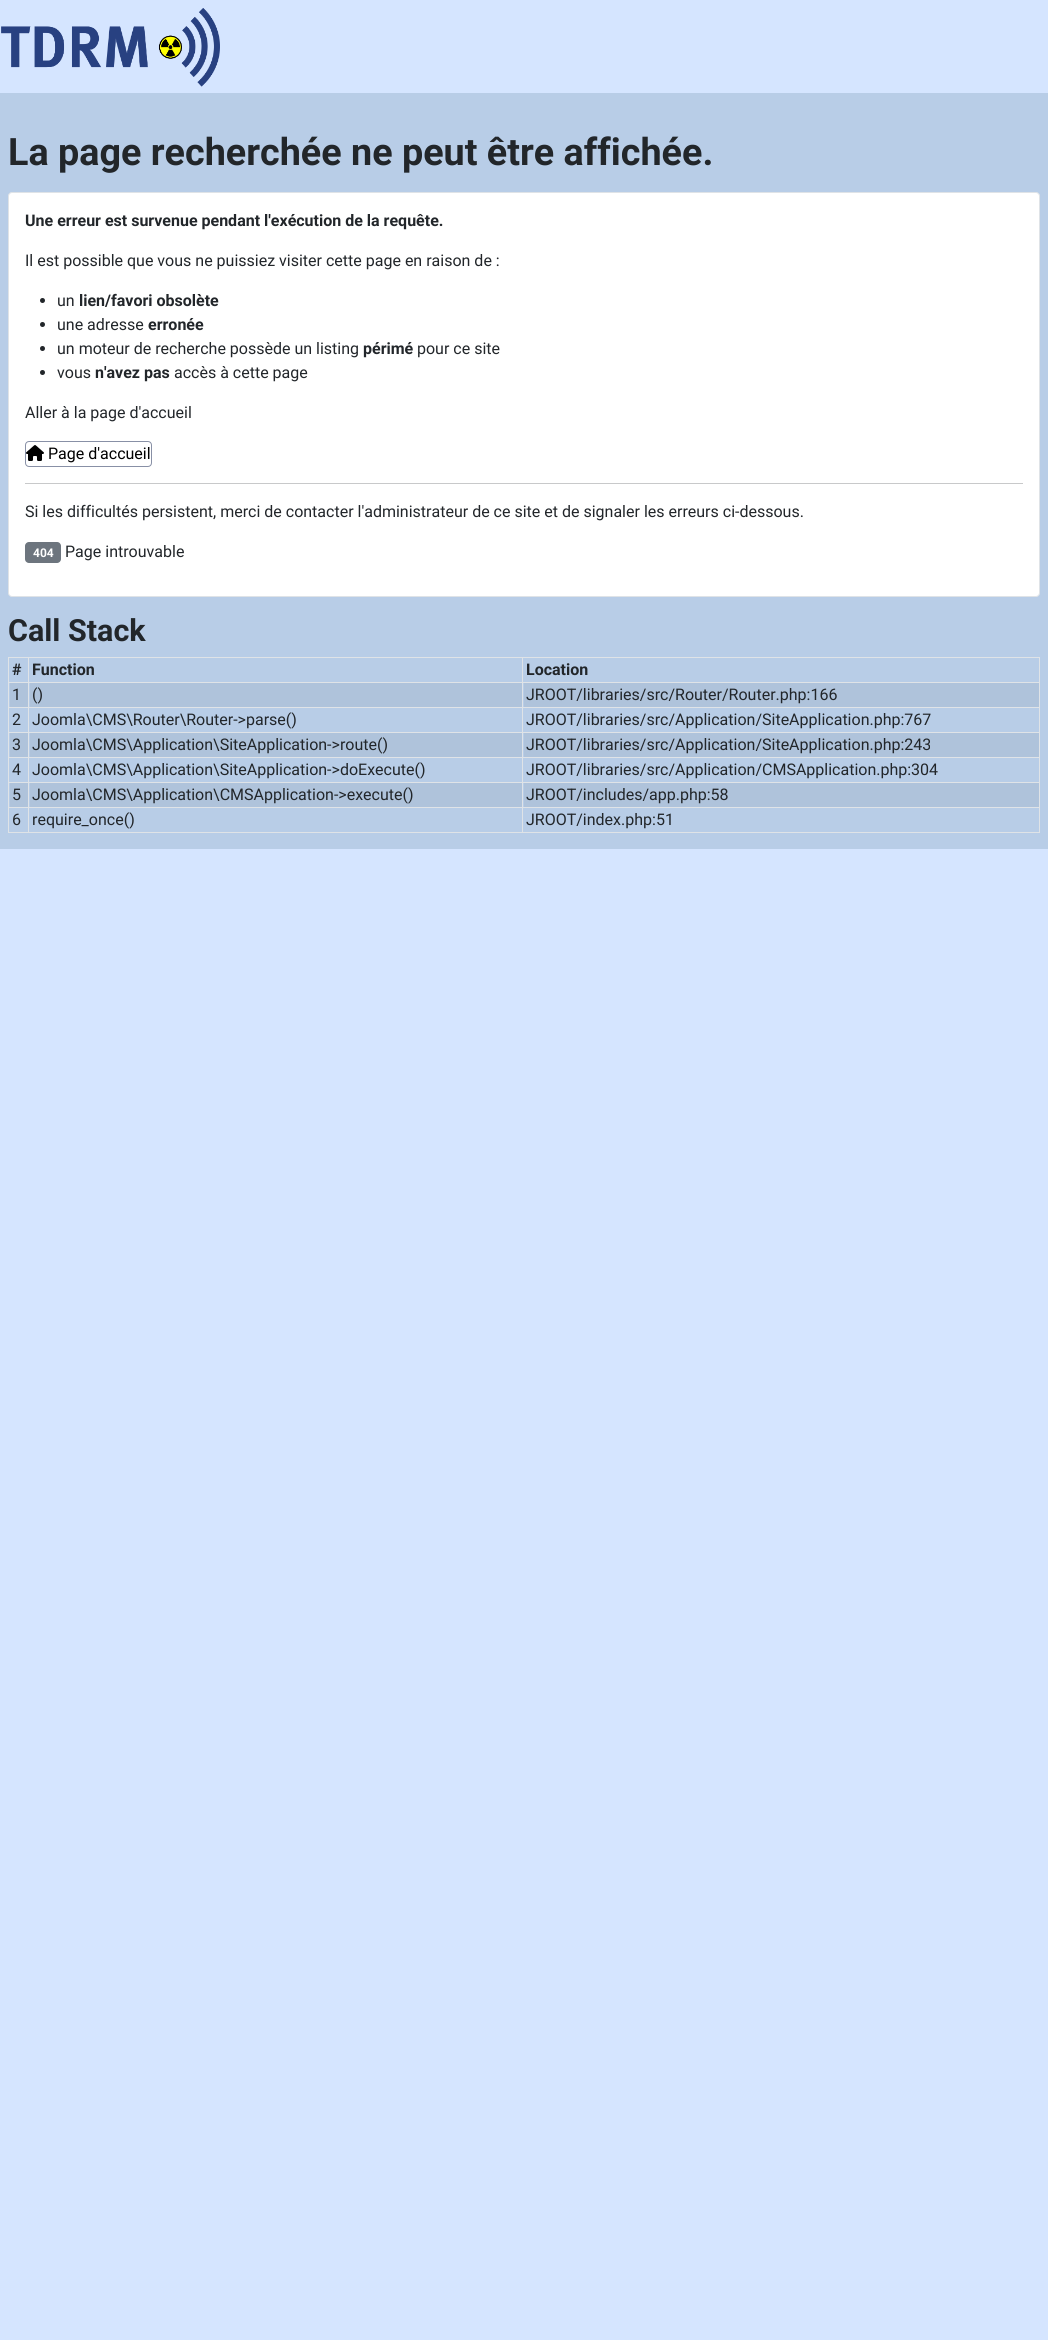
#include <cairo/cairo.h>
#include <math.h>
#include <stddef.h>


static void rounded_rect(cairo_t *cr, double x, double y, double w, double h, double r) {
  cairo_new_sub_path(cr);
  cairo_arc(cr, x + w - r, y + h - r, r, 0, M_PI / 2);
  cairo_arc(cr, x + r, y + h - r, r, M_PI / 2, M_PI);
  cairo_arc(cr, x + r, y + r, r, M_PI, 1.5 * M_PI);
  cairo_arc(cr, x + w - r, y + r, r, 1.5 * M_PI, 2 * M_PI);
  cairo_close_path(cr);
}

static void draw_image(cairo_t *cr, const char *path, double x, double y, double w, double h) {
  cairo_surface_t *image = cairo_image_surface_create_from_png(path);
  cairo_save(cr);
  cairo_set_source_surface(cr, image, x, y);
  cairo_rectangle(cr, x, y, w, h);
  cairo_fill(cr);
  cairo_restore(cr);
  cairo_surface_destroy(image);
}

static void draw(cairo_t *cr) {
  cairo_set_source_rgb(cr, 213 / 255.0, 229 / 255.0, 1);
  cairo_paint(cr);
  draw_image(cr, "images/1.png", 1, 8, 219, 79);
  cairo_set_source_rgb(cr, 184 / 255.0, 205 / 255.0, 231 / 255.0);
  cairo_rectangle(cr, 0, 93, 1048, 756);
  cairo_fill(cr);
  cairo_set_source_rgb(cr, 1, 1, 1);
  rounded_rect(cr, 8.5, 192.5, 1031, 404, 3.5);
  cairo_fill_preserve(cr);
  cairo_set_source_rgb(cr, 223 / 255.0, 227 / 255.0, 231 / 255.0);
  cairo_set_line_width(cr, 1);
  cairo_stroke(cr);
  cairo_set_source_rgb(cr, 34 / 255.0, 38 / 255.0, 42 / 255.0);
  cairo_arc(cr, 42.5, 300.5, 2.5, 0, 2 * M_PI);
  cairo_fill(cr);
  cairo_arc(cr, 42.5, 324.5, 2.5, 0, 2 * M_PI);
  cairo_fill(cr);
  cairo_arc(cr, 42.5, 348.5, 2.5, 0, 2 * M_PI);
  cairo_fill(cr);
  cairo_arc(cr, 42.5, 372.5, 2.5, 0, 2 * M_PI);
  cairo_fill(cr);
  rounded_rect(cr, 25.5, 441.5, 126, 25, 3.5);
  cairo_set_source_rgb(cr, 136 / 255.0, 144 / 255.0, 166 / 255.0);
  cairo_stroke(cr);
  draw_image(cr, "images/2.png", 26, 445, 18, 16);
  cairo_set_source_rgb(cr, 200 / 255.0, 201 / 255.0, 202 / 255.0);
  cairo_rectangle(cr, 25, 483, 998, 1);
  cairo_fill(cr);
  cairo_set_source_rgb(cr, 109 / 255.0, 117 / 255.0, 126 / 255.0);
  rounded_rect(cr, 25, 542, 36, 21, 4);
  cairo_fill(cr);
  cairo_set_source_rgb(cr, 223 / 255.0, 227 / 255.0, 231 / 255.0);
  cairo_rectangle(cr, 8, 657, 1032, 1);
  cairo_fill(cr);
  cairo_rectangle(cr, 8, 682, 1032, 1);
  cairo_fill(cr);
  cairo_set_source_rgb(cr, 175 / 255.0, 195 / 255.0, 219 / 255.0);
  cairo_rectangle(cr, 10, 683, 18, 24);
  cairo_fill(cr);
  cairo_rectangle(cr, 30, 683, 492, 24);
  cairo_fill(cr);
  cairo_rectangle(cr, 524, 683, 515, 24);
  cairo_fill(cr);
  cairo_set_source_rgb(cr, 223 / 255.0, 227 / 255.0, 231 / 255.0);
  cairo_rectangle(cr, 8, 707, 1032, 1);
  cairo_fill(cr);
  cairo_rectangle(cr, 8, 732, 1032, 1);
  cairo_fill(cr);
  cairo_set_source_rgb(cr, 175 / 255.0, 195 / 255.0, 219 / 255.0);
  cairo_rectangle(cr, 10, 733, 18, 24);
  cairo_fill(cr);
  cairo_rectangle(cr, 30, 733, 492, 24);
  cairo_fill(cr);
  cairo_rectangle(cr, 524, 733, 515, 24);
  cairo_fill(cr);
  cairo_set_source_rgb(cr, 223 / 255.0, 227 / 255.0, 231 / 255.0);
  cairo_rectangle(cr, 8, 757, 1032, 1);
  cairo_fill(cr);
  cairo_rectangle(cr, 8, 782, 1032, 1);
  cairo_fill(cr);
  cairo_set_source_rgb(cr, 175 / 255.0, 195 / 255.0, 219 / 255.0);
  cairo_rectangle(cr, 10, 783, 18, 24);
  cairo_fill(cr);
  cairo_rectangle(cr, 30, 783, 492, 24);
  cairo_fill(cr);
  cairo_rectangle(cr, 524, 783, 515, 24);
  cairo_fill(cr);
  cairo_set_source_rgb(cr, 223 / 255.0, 227 / 255.0, 231 / 255.0);
  cairo_rectangle(cr, 8, 807, 1032, 1);
  cairo_fill(cr);
  cairo_rectangle(cr, 8, 832, 1032, 1);
  cairo_fill(cr);
  cairo_rectangle(cr, 8, 657, 1, 176);
  cairo_fill(cr);
  cairo_rectangle(cr, 28, 657, 1, 176);
  cairo_fill(cr);
  cairo_rectangle(cr, 1039, 657, 1, 176);
  cairo_fill(cr);
  cairo_rectangle(cr, 522, 657, 1, 176);
  cairo_fill(cr);
  cairo_select_font_face(cr, "Roboto", CAIRO_FONT_SLANT_NORMAL, CAIRO_FONT_WEIGHT_BOLD);
  cairo_set_font_size(cr, 37.75);
  cairo_set_source_rgb(cr, 34 / 255.0, 38 / 255.0, 42 / 255.0);
  cairo_move_to(cr, 8, 165);
  cairo_show_text(cr, "La page recherchée ne peut être affichée.");
  cairo_set_font_size(cr, 16);
  cairo_move_to(cr, 25, 226);
  cairo_show_text(cr, "Une erreur est survenue pendant l'exécution de la requête.");
  cairo_select_font_face(cr, "Roboto", CAIRO_FONT_SLANT_NORMAL, CAIRO_FONT_WEIGHT_NORMAL);
  cairo_move_to(cr, 25, 266);
  cairo_show_text(cr, "Il est possible que vous ne puissiez visiter cette page en raison de :");
  cairo_move_to(cr, 57, 306);
  cairo_show_text(cr, "un");
  cairo_select_font_face(cr, "Roboto", CAIRO_FONT_SLANT_NORMAL, CAIRO_FONT_WEIGHT_BOLD);
  cairo_move_to(cr, 79, 306);
  cairo_show_text(cr, "lien/favori obsolète");
  cairo_select_font_face(cr, "Roboto", CAIRO_FONT_SLANT_NORMAL, CAIRO_FONT_WEIGHT_NORMAL);
  cairo_move_to(cr, 57, 330);
  cairo_show_text(cr, "une adresse");
  cairo_select_font_face(cr, "Roboto", CAIRO_FONT_SLANT_NORMAL, CAIRO_FONT_WEIGHT_BOLD);
  cairo_move_to(cr, 148, 330);
  cairo_show_text(cr, "erronée");
  cairo_select_font_face(cr, "Roboto", CAIRO_FONT_SLANT_NORMAL, CAIRO_FONT_WEIGHT_NORMAL);
  cairo_move_to(cr, 57, 354);
  cairo_show_text(cr, "un moteur de recherche possède un listing");
  cairo_select_font_face(cr, "Roboto", CAIRO_FONT_SLANT_NORMAL, CAIRO_FONT_WEIGHT_BOLD);
  cairo_move_to(cr, 363, 354);
  cairo_show_text(cr, "périmé");
  cairo_select_font_face(cr, "Roboto", CAIRO_FONT_SLANT_NORMAL, CAIRO_FONT_WEIGHT_NORMAL);
  cairo_move_to(cr, 417, 354);
  cairo_show_text(cr, "pour ce site");
  cairo_move_to(cr, 57, 378);
  cairo_show_text(cr, "vous");
  cairo_select_font_face(cr, "Roboto", CAIRO_FONT_SLANT_NORMAL, CAIRO_FONT_WEIGHT_BOLD);
  cairo_move_to(cr, 95, 378);
  cairo_show_text(cr, "n'avez pas");
  cairo_select_font_face(cr, "Roboto", CAIRO_FONT_SLANT_NORMAL, CAIRO_FONT_WEIGHT_NORMAL);
  cairo_move_to(cr, 174, 378);
  cairo_show_text(cr, "accès à cette page");
  cairo_move_to(cr, 25, 418);
  cairo_show_text(cr, "Aller à la page d'accueil");
  cairo_set_source_rgb(cr, 0, 0, 0);
  cairo_move_to(cr, 48, 459);
  cairo_show_text(cr, "Page d'accueil");
  cairo_set_source_rgb(cr, 34 / 255.0, 38 / 255.0, 42 / 255.0);
  cairo_move_to(cr, 25, 517);
  cairo_show_text(cr, "Si les difficultés persistent, merci de contacter l'administrateur de ce site et de signaler les erreurs ci-dessous.");
  cairo_select_font_face(cr, "Roboto", CAIRO_FONT_SLANT_NORMAL, CAIRO_FONT_WEIGHT_BOLD);
  cairo_set_font_size(cr, 12);
  cairo_set_source_rgb(cr, 1, 1, 1);
  cairo_move_to(cr, 33, 557);
  cairo_show_text(cr, "404");
  cairo_select_font_face(cr, "Roboto", CAIRO_FONT_SLANT_NORMAL, CAIRO_FONT_WEIGHT_NORMAL);
  cairo_set_font_size(cr, 16);
  cairo_set_source_rgb(cr, 34 / 255.0, 38 / 255.0, 42 / 255.0);
  cairo_move_to(cr, 65, 557);
  cairo_show_text(cr, "Page introuvable");
  cairo_select_font_face(cr, "Roboto", CAIRO_FONT_SLANT_NORMAL, CAIRO_FONT_WEIGHT_BOLD);
  cairo_set_font_size(cr, 30.5);
  cairo_move_to(cr, 8, 641);
  cairo_show_text(cr, "Call Stack");
  cairo_set_font_size(cr, 16);
  cairo_move_to(cr, 12, 675);
  cairo_show_text(cr, "#");
  cairo_move_to(cr, 32, 675);
  cairo_show_text(cr, "Function");
  cairo_move_to(cr, 526, 675);
  cairo_show_text(cr, "Location");
  cairo_select_font_face(cr, "Roboto", CAIRO_FONT_SLANT_NORMAL, CAIRO_FONT_WEIGHT_NORMAL);
  cairo_move_to(cr, 12, 700);
  cairo_show_text(cr, "1");
  cairo_move_to(cr, 32, 700);
  cairo_show_text(cr, "()");
  cairo_move_to(cr, 526, 700);
  cairo_show_text(cr, "JROOT/libraries/src/Router/Router.php:166");
  cairo_move_to(cr, 12, 725);
  cairo_show_text(cr, "2");
  cairo_move_to(cr, 32, 725);
  cairo_show_text(cr, "Joomla\\CMS\\Router\\Router->parse()");
  cairo_move_to(cr, 526, 725);
  cairo_show_text(cr, "JROOT/libraries/src/Application/SiteApplication.php:767");
  cairo_move_to(cr, 12, 750);
  cairo_show_text(cr, "3");
  cairo_move_to(cr, 32, 750);
  cairo_show_text(cr, "Joomla\\CMS\\Application\\SiteApplication->route()");
  cairo_move_to(cr, 526, 750);
  cairo_show_text(cr, "JROOT/libraries/src/Application/SiteApplication.php:243");
  cairo_move_to(cr, 12, 775);
  cairo_show_text(cr, "4");
  cairo_move_to(cr, 32, 775);
  cairo_show_text(cr, "Joomla\\CMS\\Application\\SiteApplication->doExecute()");
  cairo_move_to(cr, 526, 775);
  cairo_show_text(cr, "JROOT/libraries/src/Application/CMSApplication.php:304");
  cairo_move_to(cr, 12, 800);
  cairo_show_text(cr, "5");
  cairo_move_to(cr, 32, 800);
  cairo_show_text(cr, "Joomla\\CMS\\Application\\CMSApplication->execute()");
  cairo_move_to(cr, 526, 800);
  cairo_show_text(cr, "JROOT/includes/app.php:58");
  cairo_move_to(cr, 12, 825);
  cairo_show_text(cr, "6");
  cairo_move_to(cr, 32, 825);
  cairo_show_text(cr, "require_once()");
  cairo_move_to(cr, 526, 825);
  cairo_show_text(cr, "JROOT/index.php:51");
}

int main(void) {
  cairo_surface_t *surface = cairo_image_surface_create(CAIRO_FORMAT_RGB24, 1048, 2340);
  cairo_t *cr = cairo_create(surface);
  cairo_font_options_t *options = cairo_font_options_create();
  cairo_font_options_set_hint_metrics(options, CAIRO_HINT_METRICS_OFF);
  cairo_font_options_set_hint_style(options, CAIRO_HINT_STYLE_NONE);
  cairo_set_font_options(cr, options);
  cairo_set_miter_limit(cr, 4);
  draw(cr);
  cairo_surface_write_to_png(surface, "out.png");
  cairo_font_options_destroy(options);
  cairo_destroy(cr);
  cairo_surface_destroy(surface);
  return 0;
}
